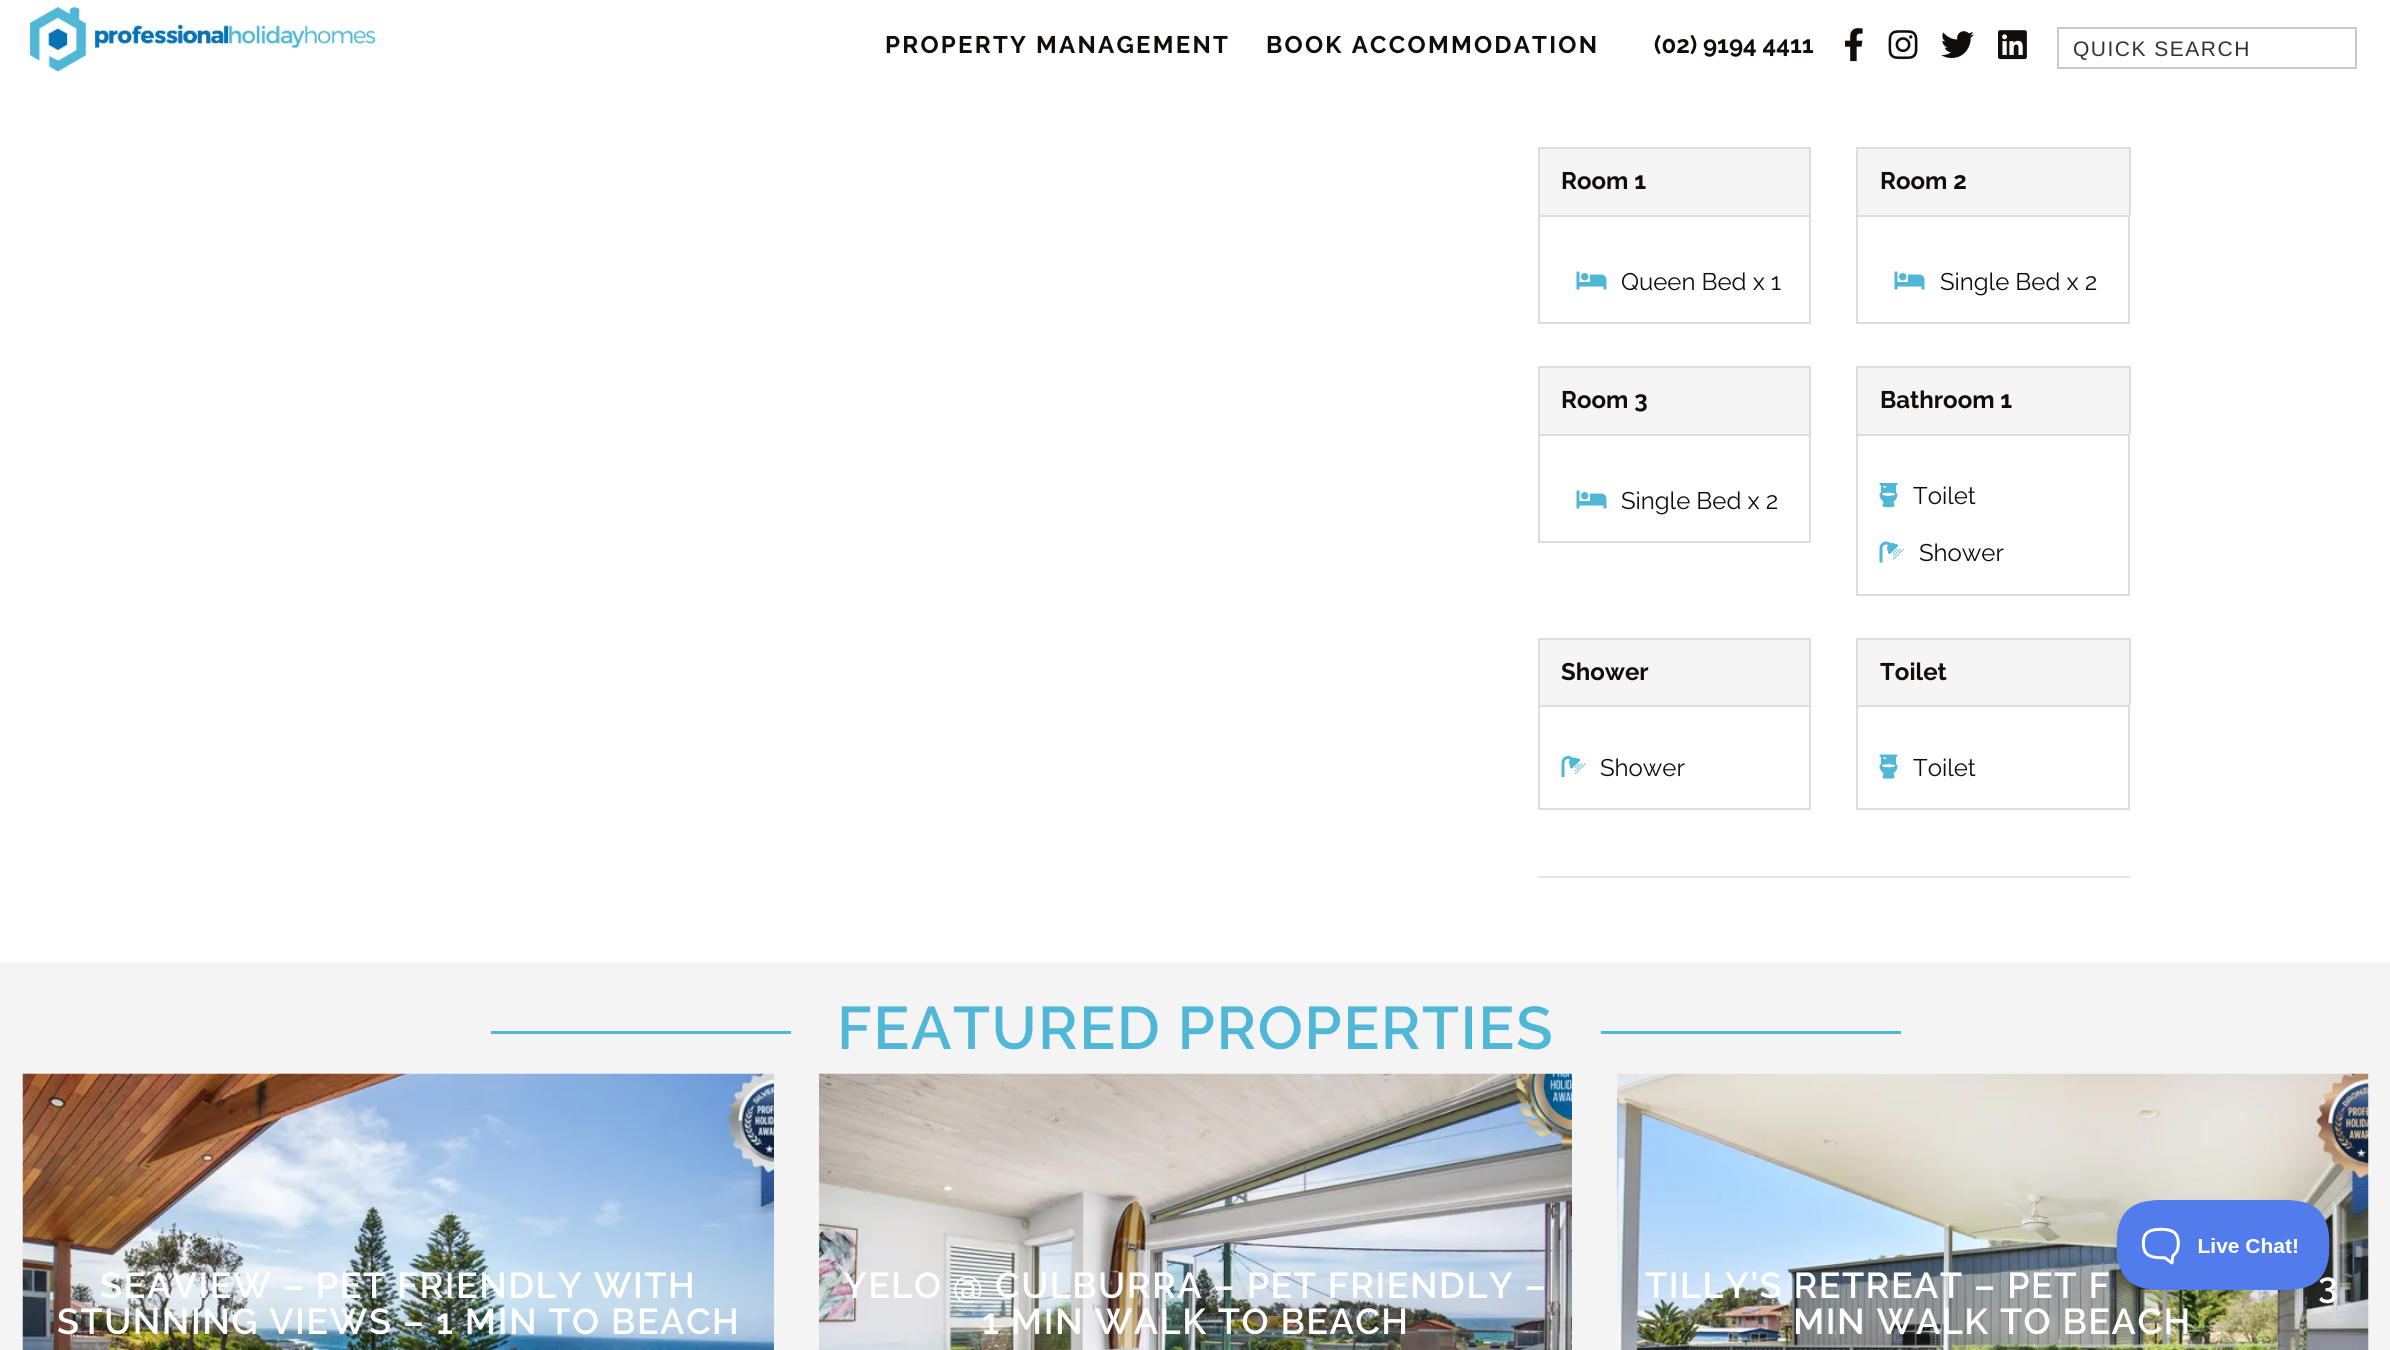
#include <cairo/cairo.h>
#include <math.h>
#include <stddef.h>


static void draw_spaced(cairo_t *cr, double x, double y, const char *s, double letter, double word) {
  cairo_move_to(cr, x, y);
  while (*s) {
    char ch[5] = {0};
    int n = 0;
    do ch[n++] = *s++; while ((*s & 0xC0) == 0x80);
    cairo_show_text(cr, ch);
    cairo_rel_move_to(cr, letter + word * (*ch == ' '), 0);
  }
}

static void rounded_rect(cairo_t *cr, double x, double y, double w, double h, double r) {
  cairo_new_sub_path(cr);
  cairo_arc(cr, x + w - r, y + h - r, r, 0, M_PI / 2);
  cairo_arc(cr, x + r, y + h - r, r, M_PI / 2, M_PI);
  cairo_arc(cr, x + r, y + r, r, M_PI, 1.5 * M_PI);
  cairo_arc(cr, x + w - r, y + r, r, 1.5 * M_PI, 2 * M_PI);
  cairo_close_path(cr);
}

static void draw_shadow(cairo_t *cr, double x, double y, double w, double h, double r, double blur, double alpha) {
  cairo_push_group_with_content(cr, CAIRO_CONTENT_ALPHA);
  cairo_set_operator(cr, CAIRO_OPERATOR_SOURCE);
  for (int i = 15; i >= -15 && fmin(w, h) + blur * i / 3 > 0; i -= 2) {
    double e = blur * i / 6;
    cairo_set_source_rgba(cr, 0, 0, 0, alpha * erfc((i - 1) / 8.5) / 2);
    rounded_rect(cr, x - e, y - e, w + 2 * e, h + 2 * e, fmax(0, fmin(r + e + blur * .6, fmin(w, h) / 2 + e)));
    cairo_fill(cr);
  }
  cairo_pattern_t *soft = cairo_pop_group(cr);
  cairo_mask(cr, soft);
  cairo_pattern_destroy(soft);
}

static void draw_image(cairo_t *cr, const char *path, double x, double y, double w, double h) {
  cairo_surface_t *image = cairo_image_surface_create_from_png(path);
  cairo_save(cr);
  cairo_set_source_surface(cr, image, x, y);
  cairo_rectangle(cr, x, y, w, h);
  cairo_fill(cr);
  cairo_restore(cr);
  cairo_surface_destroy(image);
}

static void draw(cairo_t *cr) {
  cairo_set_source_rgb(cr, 1, 1, 1);
  cairo_paint(cr);
  draw_image(cr, "images/1.png", 29, 6, 347, 66);
  draw_image(cr, "images/2.png", 1845, 28, 18, 34);
  draw_image(cr, "images/3.png", 1888, 30, 30, 30);
  draw_image(cr, "images/4.png", 1941, 31, 33, 27);
  draw_image(cr, "images/5.png", 1998, 30, 29, 30);
  cairo_rectangle(cr, 2058, 28, 298, 40);
  cairo_set_source_rgb(cr, 202 / 255.0, 202 / 255.0, 202 / 255.0);
  cairo_stroke(cr);
  cairo_set_source_rgb(cr, 245 / 255.0, 245 / 255.0, 245 / 255.0);
  cairo_rectangle(cr, 1540, 149, 269, 66);
  cairo_fill(cr);
  cairo_set_source_rgb(cr, 221 / 255.0, 221 / 255.0, 221 / 255.0);
  cairo_rectangle(cr, 1538, 147, 273, 2);
  cairo_fill(cr);
  cairo_rectangle(cr, 1809, 147, 2, 68);
  cairo_fill(cr);
  cairo_rectangle(cr, 1538, 147, 2, 68);
  cairo_fill(cr);
  cairo_rectangle(cr, 1539, 216, 271, 107);
  cairo_stroke(cr);
  draw_image(cr, "images/6.png", 1576, 271, 31, 19);
  cairo_set_source_rgb(cr, 245 / 255.0, 245 / 255.0, 245 / 255.0);
  cairo_rectangle(cr, 1858, 149, 271, 66);
  cairo_fill(cr);
  cairo_set_source_rgb(cr, 221 / 255.0, 221 / 255.0, 221 / 255.0);
  cairo_rectangle(cr, 1856, 147, 274, 2);
  cairo_fill(cr);
  cairo_rectangle(cr, 2129, 147, 2, 68);
  cairo_fill(cr);
  cairo_rectangle(cr, 1856, 147, 2, 68);
  cairo_fill(cr);
  cairo_rectangle(cr, 1857, 216, 272, 107);
  cairo_stroke(cr);
  draw_image(cr, "images/6.png", 1894, 271, 31, 19);
  cairo_set_source_rgb(cr, 245 / 255.0, 245 / 255.0, 245 / 255.0);
  cairo_rectangle(cr, 1540, 368, 269, 66);
  cairo_fill(cr);
  cairo_set_source_rgb(cr, 221 / 255.0, 221 / 255.0, 221 / 255.0);
  cairo_rectangle(cr, 1538, 366, 273, 2);
  cairo_fill(cr);
  cairo_rectangle(cr, 1809, 366, 2, 68);
  cairo_fill(cr);
  cairo_rectangle(cr, 1538, 366, 2, 68);
  cairo_fill(cr);
  cairo_rectangle(cr, 1539, 435, 271, 107);
  cairo_stroke(cr);
  draw_image(cr, "images/6.png", 1576, 490, 31, 19);
  cairo_set_source_rgb(cr, 245 / 255.0, 245 / 255.0, 245 / 255.0);
  cairo_rectangle(cr, 1858, 368, 271, 66);
  cairo_fill(cr);
  cairo_set_source_rgb(cr, 221 / 255.0, 221 / 255.0, 221 / 255.0);
  cairo_rectangle(cr, 1856, 366, 274, 2);
  cairo_fill(cr);
  cairo_rectangle(cr, 2129, 366, 2, 68);
  cairo_fill(cr);
  cairo_rectangle(cr, 1856, 366, 2, 68);
  cairo_fill(cr);
  cairo_rectangle(cr, 1857, 435, 272, 160);
  cairo_stroke(cr);
  draw_image(cr, "images/7.png", 1879, 483, 19, 24);
  draw_image(cr, "images/8.png", 1879, 541, 25, 22);
  cairo_set_source_rgb(cr, 245 / 255.0, 245 / 255.0, 245 / 255.0);
  cairo_rectangle(cr, 1540, 640, 269, 65);
  cairo_fill(cr);
  cairo_set_source_rgb(cr, 221 / 255.0, 221 / 255.0, 221 / 255.0);
  cairo_rectangle(cr, 1538, 638, 273, 2);
  cairo_fill(cr);
  cairo_rectangle(cr, 1809, 638, 2, 67);
  cairo_fill(cr);
  cairo_rectangle(cr, 1538, 638, 2, 67);
  cairo_fill(cr);
  cairo_rectangle(cr, 1539, 706, 271, 103);
  cairo_stroke(cr);
  draw_image(cr, "images/9.png", 1561, 756, 25, 21);
  cairo_set_source_rgb(cr, 245 / 255.0, 245 / 255.0, 245 / 255.0);
  cairo_rectangle(cr, 1858, 640, 271, 65);
  cairo_fill(cr);
  cairo_set_source_rgb(cr, 221 / 255.0, 221 / 255.0, 221 / 255.0);
  cairo_rectangle(cr, 1856, 638, 274, 2);
  cairo_fill(cr);
  cairo_rectangle(cr, 2129, 638, 2, 67);
  cairo_fill(cr);
  cairo_rectangle(cr, 1856, 638, 2, 67);
  cairo_fill(cr);
  cairo_rectangle(cr, 1857, 706, 272, 103);
  cairo_stroke(cr);
  draw_image(cr, "images/10.png", 1879, 754, 19, 25);
  cairo_set_source_rgb(cr, 230 / 255.0, 230 / 255.0, 230 / 255.0);
  cairo_rectangle(cr, 1538, 876, 592, 2);
  cairo_fill(cr);
  cairo_set_source_rgb(cr, 244 / 255.0, 244 / 255.0, 244 / 255.0);
  cairo_rectangle(cr, 0, 962, 2390, 388);
  cairo_fill(cr);
  cairo_set_source_rgb(cr, 80 / 255.0, 183 / 255.0, 214 / 255.0);
  cairo_rectangle(cr, 491, 1031, 300, 3);
  cairo_fill(cr);
  cairo_rectangle(cr, 1601, 1031, 300, 3);
  cairo_fill(cr);
  draw_image(cr, "images/11.png", 22, 1073, 752, 277);
  draw_image(cr, "images/12.png", 819, 1073, 753, 277);
  draw_image(cr, "images/13.png", 1617, 1073, 752, 277);
  cairo_set_source_rgb(cr, 0, 0, 0);
  draw_shadow(cr, 2117, 1206, 214, 90, 45, 5, 0.1);
  cairo_select_font_face(cr, "Raleway", CAIRO_FONT_SLANT_NORMAL, CAIRO_FONT_WEIGHT_BOLD);
  cairo_set_font_size(cr, 24);
  cairo_set_source_rgb(cr, 19 / 255.0, 12 / 255.0, 13 / 255.0);
  draw_spaced(cr, 885, 53, "PROPERTY MANAGEMENT", 2.25, 0);
  draw_spaced(cr, 1266, 53, "BOOK ACCOMMODATION", 2.25, 0);
  cairo_move_to(cr, 1654, 53);
  cairo_show_text(cr, "(02) 9194 4411");
  cairo_select_font_face(cr, "Liberation Sans", CAIRO_FONT_SLANT_NORMAL, CAIRO_FONT_WEIGHT_NORMAL);
  cairo_set_font_size(cr, 21);
  cairo_set_source_rgb(cr, 51 / 255.0, 51 / 255.0, 51 / 255.0);
  draw_spaced(cr, 2073, 56, "QUICK SEARCH", 1.5, 0);
  cairo_select_font_face(cr, "Raleway", CAIRO_FONT_SLANT_NORMAL, CAIRO_FONT_WEIGHT_BOLD);
  cairo_set_font_size(cr, 24);
  cairo_set_source_rgb(cr, 19 / 255.0, 12 / 255.0, 13 / 255.0);
  cairo_move_to(cr, 1561, 189);
  cairo_show_text(cr, "Room 1");
  cairo_select_font_face(cr, "Raleway", CAIRO_FONT_SLANT_NORMAL, CAIRO_FONT_WEIGHT_NORMAL);
  cairo_move_to(cr, 1621, 290);
  cairo_show_text(cr, "Queen Bed x 1");
  cairo_select_font_face(cr, "Raleway", CAIRO_FONT_SLANT_NORMAL, CAIRO_FONT_WEIGHT_BOLD);
  cairo_move_to(cr, 1880, 189);
  cairo_show_text(cr, "Room 2");
  cairo_select_font_face(cr, "Raleway", CAIRO_FONT_SLANT_NORMAL, CAIRO_FONT_WEIGHT_NORMAL);
  cairo_move_to(cr, 1940, 290);
  cairo_show_text(cr, "Single Bed x 2");
  cairo_select_font_face(cr, "Raleway", CAIRO_FONT_SLANT_NORMAL, CAIRO_FONT_WEIGHT_BOLD);
  cairo_move_to(cr, 1561, 408);
  cairo_show_text(cr, "Room 3");
  cairo_select_font_face(cr, "Raleway", CAIRO_FONT_SLANT_NORMAL, CAIRO_FONT_WEIGHT_NORMAL);
  cairo_move_to(cr, 1621, 509);
  cairo_show_text(cr, "Single Bed x 2");
  cairo_select_font_face(cr, "Raleway", CAIRO_FONT_SLANT_NORMAL, CAIRO_FONT_WEIGHT_BOLD);
  cairo_move_to(cr, 1880, 408);
  cairo_show_text(cr, "Bathroom 1");
  cairo_select_font_face(cr, "Raleway", CAIRO_FONT_SLANT_NORMAL, CAIRO_FONT_WEIGHT_NORMAL);
  cairo_move_to(cr, 1913, 504);
  cairo_show_text(cr, "Toilet");
  cairo_move_to(cr, 1919, 561);
  cairo_show_text(cr, "Shower");
  cairo_select_font_face(cr, "Raleway", CAIRO_FONT_SLANT_NORMAL, CAIRO_FONT_WEIGHT_BOLD);
  cairo_move_to(cr, 1561, 680);
  cairo_show_text(cr, "Shower");
  cairo_select_font_face(cr, "Raleway", CAIRO_FONT_SLANT_NORMAL, CAIRO_FONT_WEIGHT_NORMAL);
  cairo_move_to(cr, 1600, 776);
  cairo_show_text(cr, "Shower");
  cairo_select_font_face(cr, "Raleway", CAIRO_FONT_SLANT_NORMAL, CAIRO_FONT_WEIGHT_BOLD);
  cairo_move_to(cr, 1880, 680);
  cairo_show_text(cr, "Toilet");
  cairo_select_font_face(cr, "Raleway", CAIRO_FONT_SLANT_NORMAL, CAIRO_FONT_WEIGHT_NORMAL);
  cairo_move_to(cr, 1913, 776);
  cairo_show_text(cr, "Toilet");
  cairo_select_font_face(cr, "Raleway SemiBold", CAIRO_FONT_SLANT_NORMAL, CAIRO_FONT_WEIGHT_NORMAL);
  cairo_set_font_size(cr, 60);
  cairo_set_source_rgb(cr, 80 / 255.0, 183 / 255.0, 214 / 255.0);
  draw_spaced(cr, 837, 1049, "FEATURED PROPERTIES", 1.5, 0);
  cairo_set_font_size(cr, 36);
  cairo_set_source_rgb(cr, 1, 1, 1);
  draw_spaced(cr, 100, 1298, "SEAVIEW – PET FRIENDLY WITH", 1.5, 0);
  draw_spaced(cr, 57, 1334, "STUNNING VIEWS – 1 MIN TO BEACH", 1.5, 0);
  draw_spaced(cr, 843, 1298, "YELO @ CULBURRA – PET FRIENDLY –", 1.5, 0);
  draw_spaced(cr, 982, 1334, "1 MIN WALK TO BEACH", 1.5, 0);
  draw_spaced(cr, 1645, 1298, "TILLY’S RETREAT – PET F", 1.5, 0);
  draw_spaced(cr, 2318, 1298, "3", 1.5, 0);
  draw_spaced(cr, 1793, 1334, "MIN WALK TO BEACH", 1.5, 0);
  draw_image(cr, "images/14.png", 2116, 1200, 214, 90);
}

int main(void) {
  cairo_surface_t *surface = cairo_image_surface_create(CAIRO_FORMAT_RGB24, 2390, 1350);
  cairo_t *cr = cairo_create(surface);
  cairo_font_options_t *options = cairo_font_options_create();
  cairo_font_options_set_hint_metrics(options, CAIRO_HINT_METRICS_OFF);
  cairo_font_options_set_hint_style(options, CAIRO_HINT_STYLE_NONE);
  cairo_set_font_options(cr, options);
  cairo_set_miter_limit(cr, 4);
  draw(cr);
  cairo_surface_write_to_png(surface, "out.png");
  cairo_font_options_destroy(options);
  cairo_destroy(cr);
  cairo_surface_destroy(surface);
  return 0;
}
